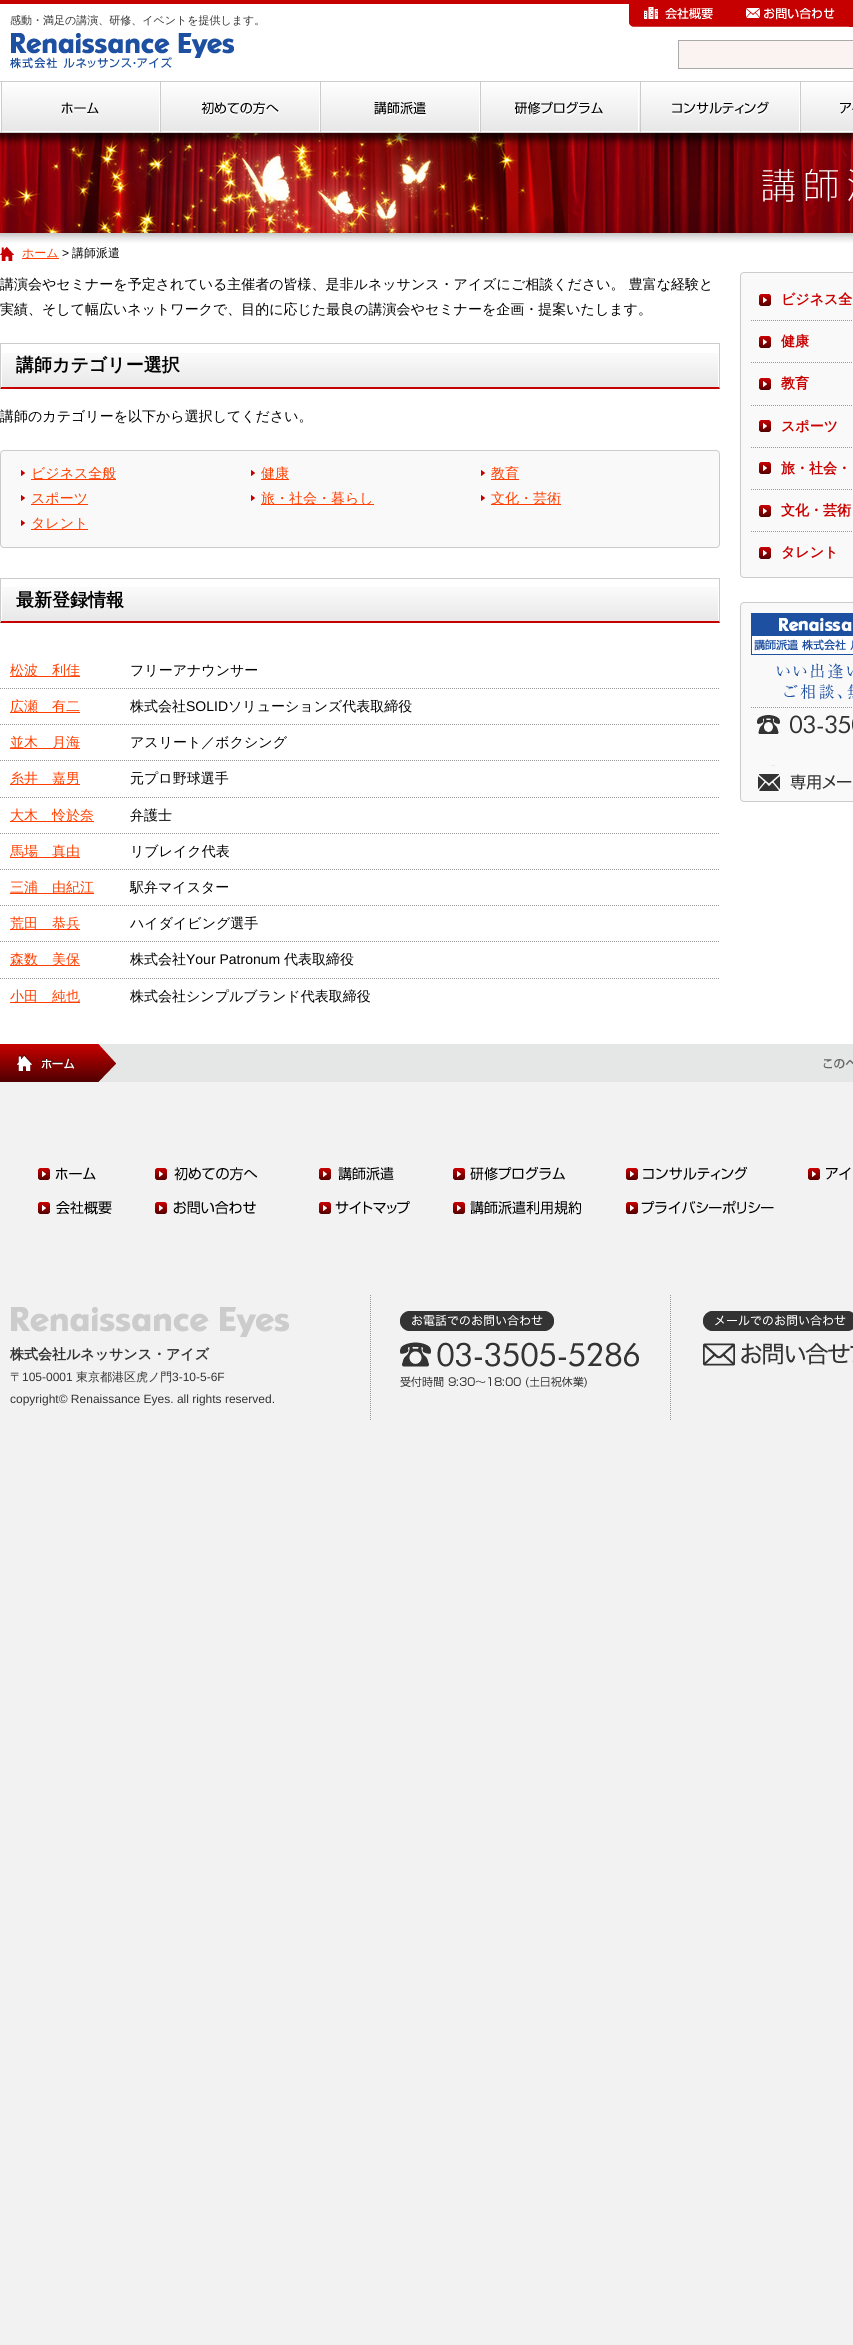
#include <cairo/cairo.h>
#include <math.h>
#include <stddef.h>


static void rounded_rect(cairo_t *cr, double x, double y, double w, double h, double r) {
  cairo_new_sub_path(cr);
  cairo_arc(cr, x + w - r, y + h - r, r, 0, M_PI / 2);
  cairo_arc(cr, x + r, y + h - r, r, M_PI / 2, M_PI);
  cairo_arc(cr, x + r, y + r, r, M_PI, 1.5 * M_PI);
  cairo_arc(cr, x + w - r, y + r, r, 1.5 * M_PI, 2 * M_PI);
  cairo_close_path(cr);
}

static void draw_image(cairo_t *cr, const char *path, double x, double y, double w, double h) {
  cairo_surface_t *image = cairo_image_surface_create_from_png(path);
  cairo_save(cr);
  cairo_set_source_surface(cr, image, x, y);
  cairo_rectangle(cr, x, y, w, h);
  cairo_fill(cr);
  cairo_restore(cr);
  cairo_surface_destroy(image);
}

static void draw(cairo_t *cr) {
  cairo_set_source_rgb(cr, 242 / 255.0, 242 / 255.0, 242 / 255.0);
  cairo_paint(cr);
  cairo_set_source_rgb(cr, 1, 1, 1);
  cairo_rectangle(cr, 0, 4, 853, 1040);
  cairo_fill(cr);
  draw_image(cr, "images/11.png", 0, 133, 853, 110);
  draw_image(cr, "images/12.png", 0, 133, 568, 100);
  draw_image(cr, "images/1.png", 0, 0, 853, 146);
  draw_image(cr, "images/2.png", 10, 33, 224, 36);
  draw_image(cr, "images/3.png", 629, 4, 110, 23);
  draw_image(cr, "images/4.png", 739, 4, 110, 23);
  cairo_set_source_rgb(cr, 198 / 255.0, 0, 0);
  cairo_rectangle(cr, 849, 4, 4, 23);
  cairo_fill(cr);
  cairo_set_source_rgb(cr, 251 / 255.0, 242 / 255.0, 242 / 255.0);
  cairo_rectangle(cr, 678.5, 40.5, 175, 28);
  cairo_fill_preserve(cr);
  cairo_set_source_rgb(cr, 170 / 255.0, 170 / 255.0, 170 / 255.0);
  cairo_set_line_width(cr, 1);
  cairo_stroke(cr);
  draw_image(cr, "images/5.png", 0, 82, 160, 50);
  draw_image(cr, "images/6.png", 160, 82, 160, 50);
  draw_image(cr, "images/7.png", 320, 82, 160, 50);
  draw_image(cr, "images/8.png", 480, 82, 159, 50);
  draw_image(cr, "images/9.png", 640, 82, 160, 50);
  draw_image(cr, "images/10.png", 800, 82, 53, 50);
  draw_image(cr, "images/13.png", 762, 168, 91, 34);
  draw_image(cr, "images/14.png", 0, 247, 14, 14);
  cairo_set_source_rgb(cr, 1, 63 / 255.0, 0);
  cairo_rectangle(cr, 22, 258, 37, 1);
  cairo_fill(cr);
  draw_image(cr, "images/15.png", 2, 353, 716, 34);
  cairo_set_source_rgb(cr, 204 / 255.0, 204 / 255.0, 204 / 255.0);
  cairo_rectangle(cr, 0, 343, 720, 1);
  cairo_fill(cr);
  cairo_new_path(cr);
  cairo_move_to(cr, 720, 343);
  cairo_line_to(cr, 720, 389);
  cairo_line_to(cr, 719, 387);
  cairo_line_to(cr, 719, 344);
  cairo_close_path(cr);
  cairo_fill(cr);
  cairo_set_source_rgb(cr, 198 / 255.0, 0, 0);
  cairo_new_path(cr);
  cairo_move_to(cr, 720, 389);
  cairo_line_to(cr, 0, 389);
  cairo_line_to(cr, 1, 387);
  cairo_line_to(cr, 719, 387);
  cairo_close_path(cr);
  cairo_fill(cr);
  cairo_set_source_rgb(cr, 204 / 255.0, 204 / 255.0, 204 / 255.0);
  cairo_new_path(cr);
  cairo_move_to(cr, 0, 389);
  cairo_line_to(cr, 0, 343);
  cairo_line_to(cr, 1, 344);
  cairo_line_to(cr, 1, 387);
  cairo_close_path(cr);
  cairo_fill(cr);
  cairo_set_source_rgb(cr, 249 / 255.0, 249 / 255.0, 249 / 255.0);
  rounded_rect(cr, 0.5, 450.5, 719, 97, 3.5);
  cairo_fill_preserve(cr);
  cairo_set_source_rgb(cr, 204 / 255.0, 204 / 255.0, 204 / 255.0);
  cairo_stroke(cr);
  draw_image(cr, "images/16.png", 21, 470, 4, 6);
  cairo_set_source_rgb(cr, 1, 63 / 255.0, 0);
  cairo_rectangle(cr, 31, 479, 85, 1);
  cairo_fill(cr);
  draw_image(cr, "images/16.png", 251, 470, 4, 6);
  cairo_rectangle(cr, 261, 479, 28, 1);
  cairo_fill(cr);
  draw_image(cr, "images/16.png", 481, 470, 4, 6);
  cairo_rectangle(cr, 491, 479, 28, 1);
  cairo_fill(cr);
  draw_image(cr, "images/16.png", 21, 495, 4, 6);
  cairo_rectangle(cr, 31, 504, 57, 1);
  cairo_fill(cr);
  draw_image(cr, "images/16.png", 251, 495, 4, 6);
  cairo_rectangle(cr, 261, 504, 113, 1);
  cairo_fill(cr);
  draw_image(cr, "images/16.png", 481, 495, 4, 6);
  cairo_rectangle(cr, 491, 504, 70, 1);
  cairo_fill(cr);
  draw_image(cr, "images/16.png", 21, 520, 4, 6);
  cairo_rectangle(cr, 31, 529, 57, 1);
  cairo_fill(cr);
  draw_image(cr, "images/15.png", 2, 587, 716, 34);
  cairo_set_source_rgb(cr, 204 / 255.0, 204 / 255.0, 204 / 255.0);
  cairo_rectangle(cr, 0, 578, 720, 1);
  cairo_fill(cr);
  cairo_new_path(cr);
  cairo_move_to(cr, 720, 578);
  cairo_line_to(cr, 720, 623);
  cairo_line_to(cr, 719, 621);
  cairo_line_to(cr, 719, 579);
  cairo_close_path(cr);
  cairo_fill(cr);
  cairo_set_source_rgb(cr, 198 / 255.0, 0, 0);
  cairo_new_path(cr);
  cairo_move_to(cr, 720, 623);
  cairo_line_to(cr, 0, 623);
  cairo_line_to(cr, 1, 621);
  cairo_line_to(cr, 719, 621);
  cairo_close_path(cr);
  cairo_fill(cr);
  cairo_set_source_rgb(cr, 204 / 255.0, 204 / 255.0, 204 / 255.0);
  cairo_new_path(cr);
  cairo_move_to(cr, 0, 623);
  cairo_line_to(cr, 0, 578);
  cairo_line_to(cr, 1, 579);
  cairo_line_to(cr, 1, 621);
  cairo_close_path(cr);
  cairo_fill(cr);
  cairo_set_source_rgb(cr, 1, 63 / 255.0, 0);
  cairo_rectangle(cr, 10, 676, 70, 1);
  cairo_fill(cr);
  cairo_new_path(cr);
  cairo_move_to(cr, 0, 688.5);
  cairo_line_to(cr, 720, 688.5);
  cairo_set_source_rgb(cr, 153 / 255.0, 153 / 255.0, 153 / 255.0);
  cairo_set_dash(cr, (double[]){1, 1}, 2, 0);
  cairo_stroke(cr);
  cairo_set_source_rgb(cr, 1, 63 / 255.0, 0);
  cairo_rectangle(cr, 10, 712, 70, 1);
  cairo_fill(cr);
  cairo_new_path(cr);
  cairo_move_to(cr, 0, 724.5);
  cairo_line_to(cr, 720, 724.5);
  cairo_set_source_rgb(cr, 153 / 255.0, 153 / 255.0, 153 / 255.0);
  cairo_stroke(cr);
  cairo_set_source_rgb(cr, 1, 63 / 255.0, 0);
  cairo_rectangle(cr, 10, 748, 70, 1);
  cairo_fill(cr);
  cairo_new_path(cr);
  cairo_move_to(cr, 0, 760.5);
  cairo_line_to(cr, 720, 760.5);
  cairo_set_source_rgb(cr, 153 / 255.0, 153 / 255.0, 153 / 255.0);
  cairo_stroke(cr);
  cairo_set_source_rgb(cr, 1, 63 / 255.0, 0);
  cairo_rectangle(cr, 10, 784, 70, 1);
  cairo_fill(cr);
  cairo_new_path(cr);
  cairo_move_to(cr, 0, 797.5);
  cairo_line_to(cr, 720, 797.5);
  cairo_set_source_rgb(cr, 153 / 255.0, 153 / 255.0, 153 / 255.0);
  cairo_stroke(cr);
  cairo_set_source_rgb(cr, 1, 63 / 255.0, 0);
  cairo_rectangle(cr, 10, 821, 84, 1);
  cairo_fill(cr);
  cairo_new_path(cr);
  cairo_move_to(cr, 0, 833.5);
  cairo_line_to(cr, 720, 833.5);
  cairo_set_source_rgb(cr, 153 / 255.0, 153 / 255.0, 153 / 255.0);
  cairo_stroke(cr);
  cairo_set_source_rgb(cr, 1, 63 / 255.0, 0);
  cairo_rectangle(cr, 10, 857, 70, 1);
  cairo_fill(cr);
  cairo_new_path(cr);
  cairo_move_to(cr, 0, 869.5);
  cairo_line_to(cr, 720, 869.5);
  cairo_set_source_rgb(cr, 153 / 255.0, 153 / 255.0, 153 / 255.0);
  cairo_stroke(cr);
  cairo_set_source_rgb(cr, 1, 63 / 255.0, 0);
  cairo_rectangle(cr, 10, 893, 84, 1);
  cairo_fill(cr);
  cairo_new_path(cr);
  cairo_move_to(cr, 0, 905.5);
  cairo_line_to(cr, 720, 905.5);
  cairo_set_source_rgb(cr, 153 / 255.0, 153 / 255.0, 153 / 255.0);
  cairo_stroke(cr);
  cairo_set_source_rgb(cr, 1, 63 / 255.0, 0);
  cairo_rectangle(cr, 10, 929, 70, 1);
  cairo_fill(cr);
  cairo_new_path(cr);
  cairo_move_to(cr, 0, 941.5);
  cairo_line_to(cr, 720, 941.5);
  cairo_set_source_rgb(cr, 153 / 255.0, 153 / 255.0, 153 / 255.0);
  cairo_stroke(cr);
  cairo_set_source_rgb(cr, 1, 63 / 255.0, 0);
  cairo_rectangle(cr, 10, 965, 70, 1);
  cairo_fill(cr);
  cairo_new_path(cr);
  cairo_move_to(cr, 0, 978.5);
  cairo_line_to(cr, 720, 978.5);
  cairo_set_source_rgb(cr, 153 / 255.0, 153 / 255.0, 153 / 255.0);
  cairo_stroke(cr);
  cairo_set_source_rgb(cr, 1, 63 / 255.0, 0);
  cairo_rectangle(cr, 10, 1002, 70, 1);
  cairo_fill(cr);
  cairo_set_source_rgb(cr, 249 / 255.0, 249 / 255.0, 249 / 255.0);
  rounded_rect(cr, 740.5, 272.5, 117, 305, 3.5);
  cairo_fill_preserve(cr);
  cairo_set_source_rgb(cr, 204 / 255.0, 204 / 255.0, 204 / 255.0);
  cairo_set_dash(cr, NULL, 0, 0);
  cairo_stroke(cr);
  draw_image(cr, "images/17.png", 759, 294, 12, 12);
  draw_image(cr, "images/17.png", 759, 336, 12, 12);
  cairo_new_path(cr);
  cairo_move_to(cr, 751, 320.5);
  cairo_line_to(cr, 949, 320.5);
  cairo_set_source_rgb(cr, 153 / 255.0, 153 / 255.0, 153 / 255.0);
  cairo_set_dash(cr, (double[]){1, 1}, 2, 0);
  cairo_stroke(cr);
  draw_image(cr, "images/17.png", 759, 378, 12, 12);
  cairo_new_path(cr);
  cairo_move_to(cr, 751, 362.5);
  cairo_line_to(cr, 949, 362.5);
  cairo_stroke(cr);
  draw_image(cr, "images/17.png", 759, 420, 12, 12);
  cairo_new_path(cr);
  cairo_move_to(cr, 751, 405.5);
  cairo_line_to(cr, 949, 405.5);
  cairo_stroke(cr);
  draw_image(cr, "images/17.png", 759, 462, 12, 12);
  cairo_new_path(cr);
  cairo_move_to(cr, 751, 447.5);
  cairo_line_to(cr, 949, 447.5);
  cairo_stroke(cr);
  draw_image(cr, "images/17.png", 759, 505, 12, 12);
  cairo_new_path(cr);
  cairo_move_to(cr, 751, 489.5);
  cairo_line_to(cr, 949, 489.5);
  cairo_stroke(cr);
  draw_image(cr, "images/17.png", 759, 547, 12, 12);
  cairo_new_path(cr);
  cairo_move_to(cr, 751, 531.5);
  cairo_line_to(cr, 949, 531.5);
  cairo_stroke(cr);
  cairo_set_source_rgb(cr, 249 / 255.0, 249 / 255.0, 249 / 255.0);
  rounded_rect(cr, 740.5, 602.5, 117, 199, 3.5);
  cairo_fill_preserve(cr);
  cairo_set_source_rgb(cr, 204 / 255.0, 204 / 255.0, 204 / 255.0);
  cairo_set_dash(cr, NULL, 0, 0);
  cairo_stroke(cr);
  draw_image(cr, "images/18.png", 751, 613, 102, 87);
  cairo_new_path(cr);
  cairo_move_to(cr, 751, 707.5);
  cairo_line_to(cr, 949, 707.5);
  cairo_set_source_rgb(cr, 153 / 255.0, 153 / 255.0, 153 / 255.0);
  cairo_set_dash(cr, (double[]){1, 1}, 2, 0);
  cairo_stroke(cr);
  draw_image(cr, "images/19.png", 757, 715, 96, 76);
  cairo_set_source_rgb(cr, 229 / 255.0, 230 / 255.0, 230 / 255.0);
  cairo_rectangle(cr, 116, 1044, 737, 38);
  cairo_fill(cr);
  draw_image(cr, "images/20.png", 0, 1044, 116, 38);
  draw_image(cr, "images/21.png", 823, 1059, 30, 10);
  draw_image(cr, "images/22.png", 38, 1167, 58, 13);
  draw_image(cr, "images/23.png", 155, 1167, 103, 14);
  draw_image(cr, "images/24.png", 319, 1167, 75, 14);
  draw_image(cr, "images/25.png", 453, 1166, 112, 15);
  draw_image(cr, "images/26.png", 626, 1166, 122, 14);
  draw_image(cr, "images/27.png", 808, 1167, 43, 13);
  draw_image(cr, "images/28.png", 38, 1201, 74, 14);
  draw_image(cr, "images/29.png", 155, 1201, 101, 14);
  draw_image(cr, "images/30.png", 319, 1201, 91, 13);
  draw_image(cr, "images/31.png", 453, 1200, 128, 15);
  draw_image(cr, "images/32.png", 626, 1200, 148, 14);
  draw_image(cr, "images/33.png", 11, 1307, 278, 30);
  draw_image(cr, "images/34.png", 370, 1295, 269, 125);
  draw_image(cr, "images/35.png", 670, 1295, 183, 125);
  cairo_select_font_face(cr, "WenQuanYi Zen Hei Medium", CAIRO_FONT_SLANT_NORMAL, CAIRO_FONT_WEIGHT_NORMAL);
  cairo_set_font_size(cr, 11);
  cairo_set_source_rgb(cr, 51 / 255.0, 51 / 255.0, 51 / 255.0);
  cairo_move_to(cr, 10, 24);
  cairo_show_text(cr, "感動・満足の講演、研修、イベントを提供します。");
  cairo_set_font_size(cr, 12);
  cairo_set_source_rgb(cr, 1, 63 / 255.0, 0);
  cairo_move_to(cr, 22, 257);
  cairo_show_text(cr, "ホーム");
  cairo_select_font_face(cr, "Liberation Sans", CAIRO_FONT_SLANT_NORMAL, CAIRO_FONT_WEIGHT_NORMAL);
  cairo_set_source_rgb(cr, 0, 0, 0);
  cairo_move_to(cr, 62, 257);
  cairo_show_text(cr, ">");
  cairo_select_font_face(cr, "WenQuanYi Zen Hei Medium", CAIRO_FONT_SLANT_NORMAL, CAIRO_FONT_WEIGHT_NORMAL);
  cairo_move_to(cr, 72, 257);
  cairo_show_text(cr, "講師派遣");
  cairo_set_font_size(cr, 14);
  cairo_move_to(cr, 0, 289);
  cairo_show_text(cr, "講演会やセミナーを予定されている主催者の皆様、是非ルネッサンス・アイズにご相談ください。 豊富な経験と");
  cairo_move_to(cr, 0, 314);
  cairo_show_text(cr, "実績、そして幅広いネットワークで、目的に応じた最良の講演会やセミナーを企画・提案いたします。");
  cairo_select_font_face(cr, "WenQuanYi Zen Hei", CAIRO_FONT_SLANT_NORMAL, CAIRO_FONT_WEIGHT_BOLD);
  cairo_set_font_size(cr, 18);
  cairo_move_to(cr, 16, 371);
  cairo_show_text(cr, "講師カテゴリー選択");
  cairo_select_font_face(cr, "WenQuanYi Zen Hei Medium", CAIRO_FONT_SLANT_NORMAL, CAIRO_FONT_WEIGHT_NORMAL);
  cairo_set_font_size(cr, 14);
  cairo_move_to(cr, 0, 421);
  cairo_show_text(cr, "講師のカテゴリーを以下から選択してください。");
  cairo_set_source_rgb(cr, 1, 63 / 255.0, 0);
  cairo_move_to(cr, 31, 478);
  cairo_show_text(cr, "ビジネス全般");
  cairo_move_to(cr, 261, 478);
  cairo_show_text(cr, "健康");
  cairo_move_to(cr, 491, 478);
  cairo_show_text(cr, "教育");
  cairo_move_to(cr, 31, 503);
  cairo_show_text(cr, "スポーツ");
  cairo_move_to(cr, 261, 503);
  cairo_show_text(cr, "旅・社会・暮らし");
  cairo_move_to(cr, 491, 503);
  cairo_show_text(cr, "文化・芸術");
  cairo_move_to(cr, 31, 528);
  cairo_show_text(cr, "タレント");
  cairo_select_font_face(cr, "WenQuanYi Zen Hei", CAIRO_FONT_SLANT_NORMAL, CAIRO_FONT_WEIGHT_BOLD);
  cairo_set_font_size(cr, 18);
  cairo_set_source_rgb(cr, 0, 0, 0);
  cairo_move_to(cr, 16, 606);
  cairo_show_text(cr, "最新登録情報");
  cairo_select_font_face(cr, "WenQuanYi Zen Hei Medium", CAIRO_FONT_SLANT_NORMAL, CAIRO_FONT_WEIGHT_NORMAL);
  cairo_set_font_size(cr, 14);
  cairo_set_source_rgb(cr, 1, 63 / 255.0, 0);
  cairo_move_to(cr, 10, 675);
  cairo_show_text(cr, "松波　利佳");
  cairo_set_source_rgb(cr, 0, 0, 0);
  cairo_move_to(cr, 130, 675);
  cairo_show_text(cr, "フリーアナウンサー");
  cairo_set_source_rgb(cr, 1, 63 / 255.0, 0);
  cairo_move_to(cr, 10, 711);
  cairo_show_text(cr, "広瀬　有二");
  cairo_set_source_rgb(cr, 0, 0, 0);
  cairo_move_to(cr, 130, 711);
  cairo_show_text(cr, "株式会社");
  cairo_select_font_face(cr, "Liberation Sans", CAIRO_FONT_SLANT_NORMAL, CAIRO_FONT_WEIGHT_NORMAL);
  cairo_move_to(cr, 186, 711);
  cairo_show_text(cr, "SOLID");
  cairo_select_font_face(cr, "WenQuanYi Zen Hei Medium", CAIRO_FONT_SLANT_NORMAL, CAIRO_FONT_WEIGHT_NORMAL);
  cairo_move_to(cr, 228, 711);
  cairo_show_text(cr, "ソリューションズ代表取締役");
  cairo_set_source_rgb(cr, 1, 63 / 255.0, 0);
  cairo_move_to(cr, 10, 747);
  cairo_show_text(cr, "並木　月海");
  cairo_set_source_rgb(cr, 0, 0, 0);
  cairo_move_to(cr, 130, 747);
  cairo_show_text(cr, "アスリート／ボクシング");
  cairo_set_source_rgb(cr, 1, 63 / 255.0, 0);
  cairo_move_to(cr, 10, 783);
  cairo_show_text(cr, "糸井　嘉男");
  cairo_set_source_rgb(cr, 0, 0, 0);
  cairo_move_to(cr, 130, 783);
  cairo_show_text(cr, "元プロ野球選手");
  cairo_set_source_rgb(cr, 1, 63 / 255.0, 0);
  cairo_move_to(cr, 10, 820);
  cairo_show_text(cr, "大木　怜於奈");
  cairo_set_source_rgb(cr, 0, 0, 0);
  cairo_move_to(cr, 130, 820);
  cairo_show_text(cr, "弁護士");
  cairo_set_source_rgb(cr, 1, 63 / 255.0, 0);
  cairo_move_to(cr, 10, 856);
  cairo_show_text(cr, "馬場　真由");
  cairo_set_source_rgb(cr, 0, 0, 0);
  cairo_move_to(cr, 130, 856);
  cairo_show_text(cr, "リブレイク代表");
  cairo_set_source_rgb(cr, 1, 63 / 255.0, 0);
  cairo_move_to(cr, 10, 892);
  cairo_show_text(cr, "三浦　由紀江");
  cairo_set_source_rgb(cr, 0, 0, 0);
  cairo_move_to(cr, 130, 892);
  cairo_show_text(cr, "駅弁マイスター");
  cairo_set_source_rgb(cr, 1, 63 / 255.0, 0);
  cairo_move_to(cr, 10, 928);
  cairo_show_text(cr, "荒田　恭兵");
  cairo_set_source_rgb(cr, 0, 0, 0);
  cairo_move_to(cr, 130, 928);
  cairo_show_text(cr, "ハイダイビング選手");
  cairo_set_source_rgb(cr, 1, 63 / 255.0, 0);
  cairo_move_to(cr, 10, 964);
  cairo_show_text(cr, "森数　美保");
  cairo_set_source_rgb(cr, 0, 0, 0);
  cairo_move_to(cr, 130, 964);
  cairo_show_text(cr, "株式会社");
  cairo_select_font_face(cr, "Liberation Sans", CAIRO_FONT_SLANT_NORMAL, CAIRO_FONT_WEIGHT_NORMAL);
  cairo_move_to(cr, 186, 964);
  cairo_show_text(cr, "Your Patronum");
  cairo_select_font_face(cr, "WenQuanYi Zen Hei Medium", CAIRO_FONT_SLANT_NORMAL, CAIRO_FONT_WEIGHT_NORMAL);
  cairo_move_to(cr, 284, 964);
  cairo_show_text(cr, "代表取締役");
  cairo_set_source_rgb(cr, 1, 63 / 255.0, 0);
  cairo_move_to(cr, 10, 1001);
  cairo_show_text(cr, "小田　純也");
  cairo_set_source_rgb(cr, 0, 0, 0);
  cairo_move_to(cr, 130, 1001);
  cairo_show_text(cr, "株式会社シンプルブランド代表取締役");
  cairo_select_font_face(cr, "WenQuanYi Zen Hei", CAIRO_FONT_SLANT_NORMAL, CAIRO_FONT_WEIGHT_BOLD);
  cairo_set_source_rgb(cr, 201 / 255.0, 0, 0);
  cairo_move_to(cr, 781, 304);
  cairo_show_text(cr, "ビジネス全");
  cairo_move_to(cr, 781, 346);
  cairo_show_text(cr, "健康");
  cairo_move_to(cr, 781, 388);
  cairo_show_text(cr, "教育");
  cairo_move_to(cr, 781, 431);
  cairo_show_text(cr, "スポーツ");
  cairo_move_to(cr, 781, 473);
  cairo_show_text(cr, "旅・社会・");
  cairo_move_to(cr, 781, 515);
  cairo_show_text(cr, "文化・芸術");
  cairo_move_to(cr, 781, 557);
  cairo_show_text(cr, "タレント");
  cairo_set_source_rgb(cr, 51 / 255.0, 51 / 255.0, 51 / 255.0);
  cairo_move_to(cr, 10, 1359);
  cairo_show_text(cr, "株式会社ルネッサンス・アイズ");
  cairo_select_font_face(cr, "WenQuanYi Zen Hei Medium", CAIRO_FONT_SLANT_NORMAL, CAIRO_FONT_WEIGHT_NORMAL);
  cairo_set_font_size(cr, 12);
  cairo_move_to(cr, 10, 1381);
  cairo_show_text(cr, "〒");
  cairo_select_font_face(cr, "Liberation Sans", CAIRO_FONT_SLANT_NORMAL, CAIRO_FONT_WEIGHT_NORMAL);
  cairo_move_to(cr, 22, 1381);
  cairo_show_text(cr, "105-0001");
  cairo_select_font_face(cr, "WenQuanYi Zen Hei Medium", CAIRO_FONT_SLANT_NORMAL, CAIRO_FONT_WEIGHT_NORMAL);
  cairo_move_to(cr, 76, 1381);
  cairo_show_text(cr, "東京都港区虎ノ門");
  cairo_select_font_face(cr, "Liberation Sans", CAIRO_FONT_SLANT_NORMAL, CAIRO_FONT_WEIGHT_NORMAL);
  cairo_move_to(cr, 172, 1381);
  cairo_show_text(cr, "3-10-5-6F");
  cairo_move_to(cr, 10, 1403);
  cairo_show_text(cr, "copyright© Renaissance Eyes. all rights reserved.");
}

int main(void) {
  cairo_surface_t *surface = cairo_image_surface_create(CAIRO_FORMAT_RGB24, 853, 2345);
  cairo_t *cr = cairo_create(surface);
  cairo_font_options_t *options = cairo_font_options_create();
  cairo_font_options_set_hint_metrics(options, CAIRO_HINT_METRICS_OFF);
  cairo_font_options_set_hint_style(options, CAIRO_HINT_STYLE_NONE);
  cairo_set_font_options(cr, options);
  cairo_set_miter_limit(cr, 4);
  draw(cr);
  cairo_surface_write_to_png(surface, "out.png");
  cairo_font_options_destroy(options);
  cairo_destroy(cr);
  cairo_surface_destroy(surface);
  return 0;
}
